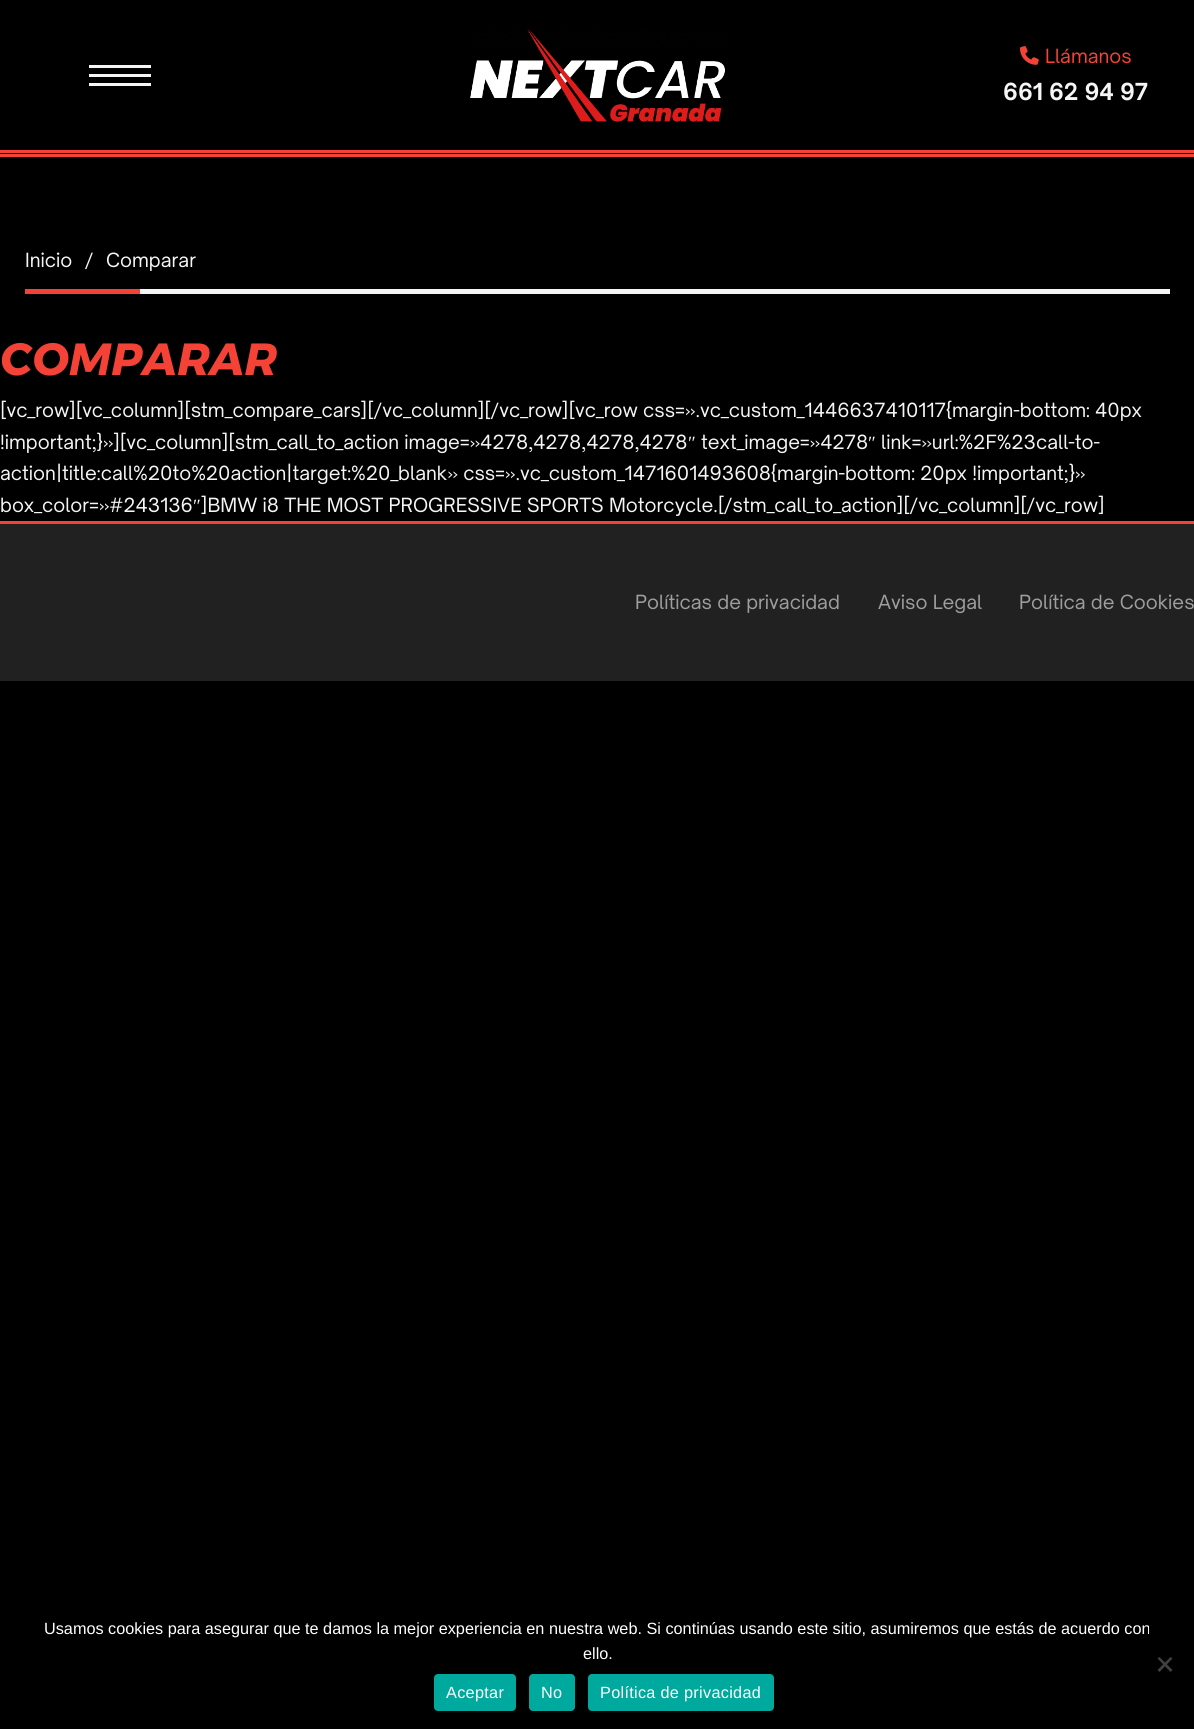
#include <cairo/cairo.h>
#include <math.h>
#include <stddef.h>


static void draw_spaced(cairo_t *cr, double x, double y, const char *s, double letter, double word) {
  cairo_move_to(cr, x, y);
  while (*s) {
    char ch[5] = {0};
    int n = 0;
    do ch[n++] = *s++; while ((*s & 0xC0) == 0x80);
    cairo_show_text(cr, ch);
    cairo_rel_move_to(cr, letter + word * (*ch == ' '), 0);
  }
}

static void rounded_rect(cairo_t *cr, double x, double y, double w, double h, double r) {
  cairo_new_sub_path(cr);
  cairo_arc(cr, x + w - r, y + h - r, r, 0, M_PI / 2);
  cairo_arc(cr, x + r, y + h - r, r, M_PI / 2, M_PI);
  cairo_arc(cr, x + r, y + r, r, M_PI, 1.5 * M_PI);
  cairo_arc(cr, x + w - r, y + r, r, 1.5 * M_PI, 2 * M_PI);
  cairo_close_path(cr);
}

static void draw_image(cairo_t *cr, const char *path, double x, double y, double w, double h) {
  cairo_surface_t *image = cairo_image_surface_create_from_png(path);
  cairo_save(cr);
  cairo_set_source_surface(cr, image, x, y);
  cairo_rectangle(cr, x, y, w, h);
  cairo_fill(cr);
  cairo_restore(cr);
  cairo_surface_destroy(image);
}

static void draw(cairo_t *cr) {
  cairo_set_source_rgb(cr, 0, 0, 0);
  cairo_paint(cr);
  cairo_set_source_rgb(cr, 244 / 255.0, 67 / 255.0, 54 / 255.0);
  cairo_rectangle(cr, 0, 150, 1194, 3);
  cairo_fill(cr);
  cairo_rectangle(cr, 0, 154, 1194, 3);
  cairo_fill(cr);
  cairo_set_source_rgb(cr, 245 / 255.0, 245 / 255.0, 245 / 255.0);
  cairo_rectangle(cr, 89, 65, 62, 3);
  cairo_fill(cr);
  cairo_rectangle(cr, 89, 74, 62, 3);
  cairo_fill(cr);
  cairo_rectangle(cr, 89, 83, 62, 3);
  cairo_fill(cr);
  draw_image(cr, "images/1.png", 470, 29, 255, 93);
  draw_image(cr, "images/2.png", 1020, 46, 19, 19);
  cairo_set_source_rgb(cr, 244 / 255.0, 67 / 255.0, 54 / 255.0);
  cairo_rectangle(cr, 25, 289, 115, 5);
  cairo_fill(cr);
  cairo_set_source_rgb(cr, 245 / 255.0, 245 / 255.0, 245 / 255.0);
  cairo_rectangle(cr, 140, 289, 1030, 5);
  cairo_fill(cr);
  cairo_set_source_rgb(cr, 33 / 255.0, 33 / 255.0, 33 / 255.0);
  cairo_rectangle(cr, 0, 524, 1194, 157);
  cairo_fill(cr);
  cairo_set_source_rgb(cr, 244 / 255.0, 67 / 255.0, 54 / 255.0);
  cairo_rectangle(cr, 0, 521, 1194, 3);
  cairo_fill(cr);
  cairo_set_source_rgb(cr, 64 / 255.0, 64 / 255.0, 64 / 255.0);
  cairo_new_path(cr);
  cairo_move_to(cr, 1170.5, 1657);
  cairo_line_to(cr, 1172.5, 1658.5);
  cairo_line_to(cr, 1159.5, 1672);
  cairo_line_to(cr, 1157.5, 1670);
  cairo_close_path(cr);
  cairo_fill(cr);
  cairo_new_path(cr);
  cairo_move_to(cr, 1157.5, 1658.5);
  cairo_line_to(cr, 1159.5, 1657);
  cairo_line_to(cr, 1172.5, 1670);
  cairo_line_to(cr, 1170.5, 1672);
  cairo_close_path(cr);
  cairo_fill(cr);
  cairo_set_source_rgb(cr, 0, 169 / 255.0, 157 / 255.0);
  rounded_rect(cr, 434, 1674, 82, 37, 4);
  cairo_fill(cr);
  rounded_rect(cr, 529, 1674, 46, 37, 4);
  cairo_fill(cr);
  rounded_rect(cr, 588, 1674, 186, 37, 4);
  cairo_fill(cr);
  cairo_select_font_face(cr, "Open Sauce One", CAIRO_FONT_SLANT_NORMAL, CAIRO_FONT_WEIGHT_NORMAL);
  cairo_set_font_size(cr, 18.75);
  cairo_set_source_rgb(cr, 244 / 255.0, 67 / 255.0, 54 / 255.0);
  cairo_move_to(cr, 1045, 63);
  cairo_show_text(cr, "Llámanos");
  cairo_select_font_face(cr, "Open Sauce One", CAIRO_FONT_SLANT_NORMAL, CAIRO_FONT_WEIGHT_BOLD);
  cairo_set_font_size(cr, 22.5);
  cairo_set_source_rgb(cr, 245 / 255.0, 245 / 255.0, 245 / 255.0);
  cairo_move_to(cr, 1003, 100);
  cairo_show_text(cr, "661 62 94 97");
  cairo_select_font_face(cr, "Open Sauce One", CAIRO_FONT_SLANT_NORMAL, CAIRO_FONT_WEIGHT_NORMAL);
  cairo_set_font_size(cr, 18.75);
  cairo_move_to(cr, 25, 267);
  cairo_show_text(cr, "Inicio");
  cairo_move_to(cr, 85, 267);
  cairo_show_text(cr, "/");
  cairo_move_to(cr, 106, 267);
  cairo_show_text(cr, "Comparar");
  cairo_select_font_face(cr, "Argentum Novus", CAIRO_FONT_SLANT_ITALIC, CAIRO_FONT_WEIGHT_BOLD);
  cairo_set_font_size(cr, 45);
  cairo_set_source_rgb(cr, 244 / 255.0, 67 / 255.0, 54 / 255.0);
  cairo_move_to(cr, 0, 375);
  cairo_show_text(cr, "COMPARAR");
  cairo_select_font_face(cr, "Open Sauce One", CAIRO_FONT_SLANT_NORMAL, CAIRO_FONT_WEIGHT_NORMAL);
  cairo_set_font_size(cr, 18.75);
  cairo_set_source_rgb(cr, 245 / 255.0, 245 / 255.0, 245 / 255.0);
  cairo_move_to(cr, 0, 417);
  cairo_show_text(cr, "[vc_row][vc_column][stm_compare_cars][/vc_column][/vc_row][vc_row css=».vc_custom_1446637410117{margin-bottom: 40px");
  cairo_move_to(cr, 0, 449);
  cairo_show_text(cr, "!important;}»][vc_column][stm_call_to_action image=»4278,4278,4278,4278");
  cairo_select_font_face(cr, "Liberation Serif", CAIRO_FONT_SLANT_NORMAL, CAIRO_FONT_WEIGHT_NORMAL);
  cairo_move_to(cr, 688, 449);
  cairo_show_text(cr, "″");
  cairo_select_font_face(cr, "Open Sauce One", CAIRO_FONT_SLANT_NORMAL, CAIRO_FONT_WEIGHT_NORMAL);
  cairo_move_to(cr, 701, 449);
  cairo_show_text(cr, "text_image=»4278");
  cairo_select_font_face(cr, "Liberation Serif", CAIRO_FONT_SLANT_NORMAL, CAIRO_FONT_WEIGHT_NORMAL);
  cairo_move_to(cr, 868, 449);
  cairo_show_text(cr, "″");
  cairo_select_font_face(cr, "Open Sauce One", CAIRO_FONT_SLANT_NORMAL, CAIRO_FONT_WEIGHT_NORMAL);
  cairo_move_to(cr, 881, 449);
  cairo_show_text(cr, "link=»url:%2F%23call-to-");
  cairo_move_to(cr, 0, 480);
  cairo_show_text(cr, "action|title:call%20to%20action|target:%20_blank» css=».vc_custom_1471601493608{margin-bottom: 20px !important;}»");
  cairo_move_to(cr, 0, 512);
  cairo_show_text(cr, "box_color=»#243136");
  cairo_select_font_face(cr, "Liberation Serif", CAIRO_FONT_SLANT_NORMAL, CAIRO_FONT_WEIGHT_NORMAL);
  cairo_move_to(cr, 193, 512);
  cairo_show_text(cr, "″");
  cairo_select_font_face(cr, "Open Sauce One", CAIRO_FONT_SLANT_NORMAL, CAIRO_FONT_WEIGHT_NORMAL);
  cairo_move_to(cr, 201, 512);
  cairo_show_text(cr, "]BMW i8 THE MOST PROGRESSIVE SPORTS Motorcycle.[/stm_call_to_action][/vc_column][/vc_row]");
  cairo_set_source_rgb(cr, 158 / 255.0, 158 / 255.0, 158 / 255.0);
  cairo_move_to(cr, 635, 609);
  cairo_show_text(cr, "Políticas de privacidad");
  cairo_move_to(cr, 878, 609);
  cairo_show_text(cr, "Aviso Legal");
  cairo_move_to(cr, 1019, 609);
  cairo_show_text(cr, "Política de Cookies");
  cairo_select_font_face(cr, "Liberation Sans", CAIRO_FONT_SLANT_NORMAL, CAIRO_FONT_WEIGHT_NORMAL);
  cairo_set_font_size(cr, 16.25);
  cairo_set_source_rgb(cr, 1, 1, 1);
  cairo_move_to(cr, 44, 1634);
  cairo_show_text(cr, "Usamos cookies para asegurar que te damos la mejor experiencia en nuestra web. Si continúas usando este sitio, asumiremos que estás de acuerdo con");
  cairo_move_to(cr, 583, 1659);
  cairo_show_text(cr, "ello.");
  draw_spaced(cr, 446, 1698, "Aceptar", 0.3, 0);
  draw_spaced(cr, 541, 1698, "No", 0.3, 0);
  draw_spaced(cr, 600, 1698, "Política de privacidad", 0.3, 0);
}

int main(void) {
  cairo_surface_t *surface = cairo_image_surface_create(CAIRO_FORMAT_RGB24, 1194, 1729);
  cairo_t *cr = cairo_create(surface);
  cairo_font_options_t *options = cairo_font_options_create();
  cairo_font_options_set_hint_metrics(options, CAIRO_HINT_METRICS_OFF);
  cairo_font_options_set_hint_style(options, CAIRO_HINT_STYLE_NONE);
  cairo_set_font_options(cr, options);
  cairo_set_miter_limit(cr, 4);
  draw(cr);
  cairo_surface_write_to_png(surface, "out.png");
  cairo_font_options_destroy(options);
  cairo_destroy(cr);
  cairo_surface_destroy(surface);
  return 0;
}
